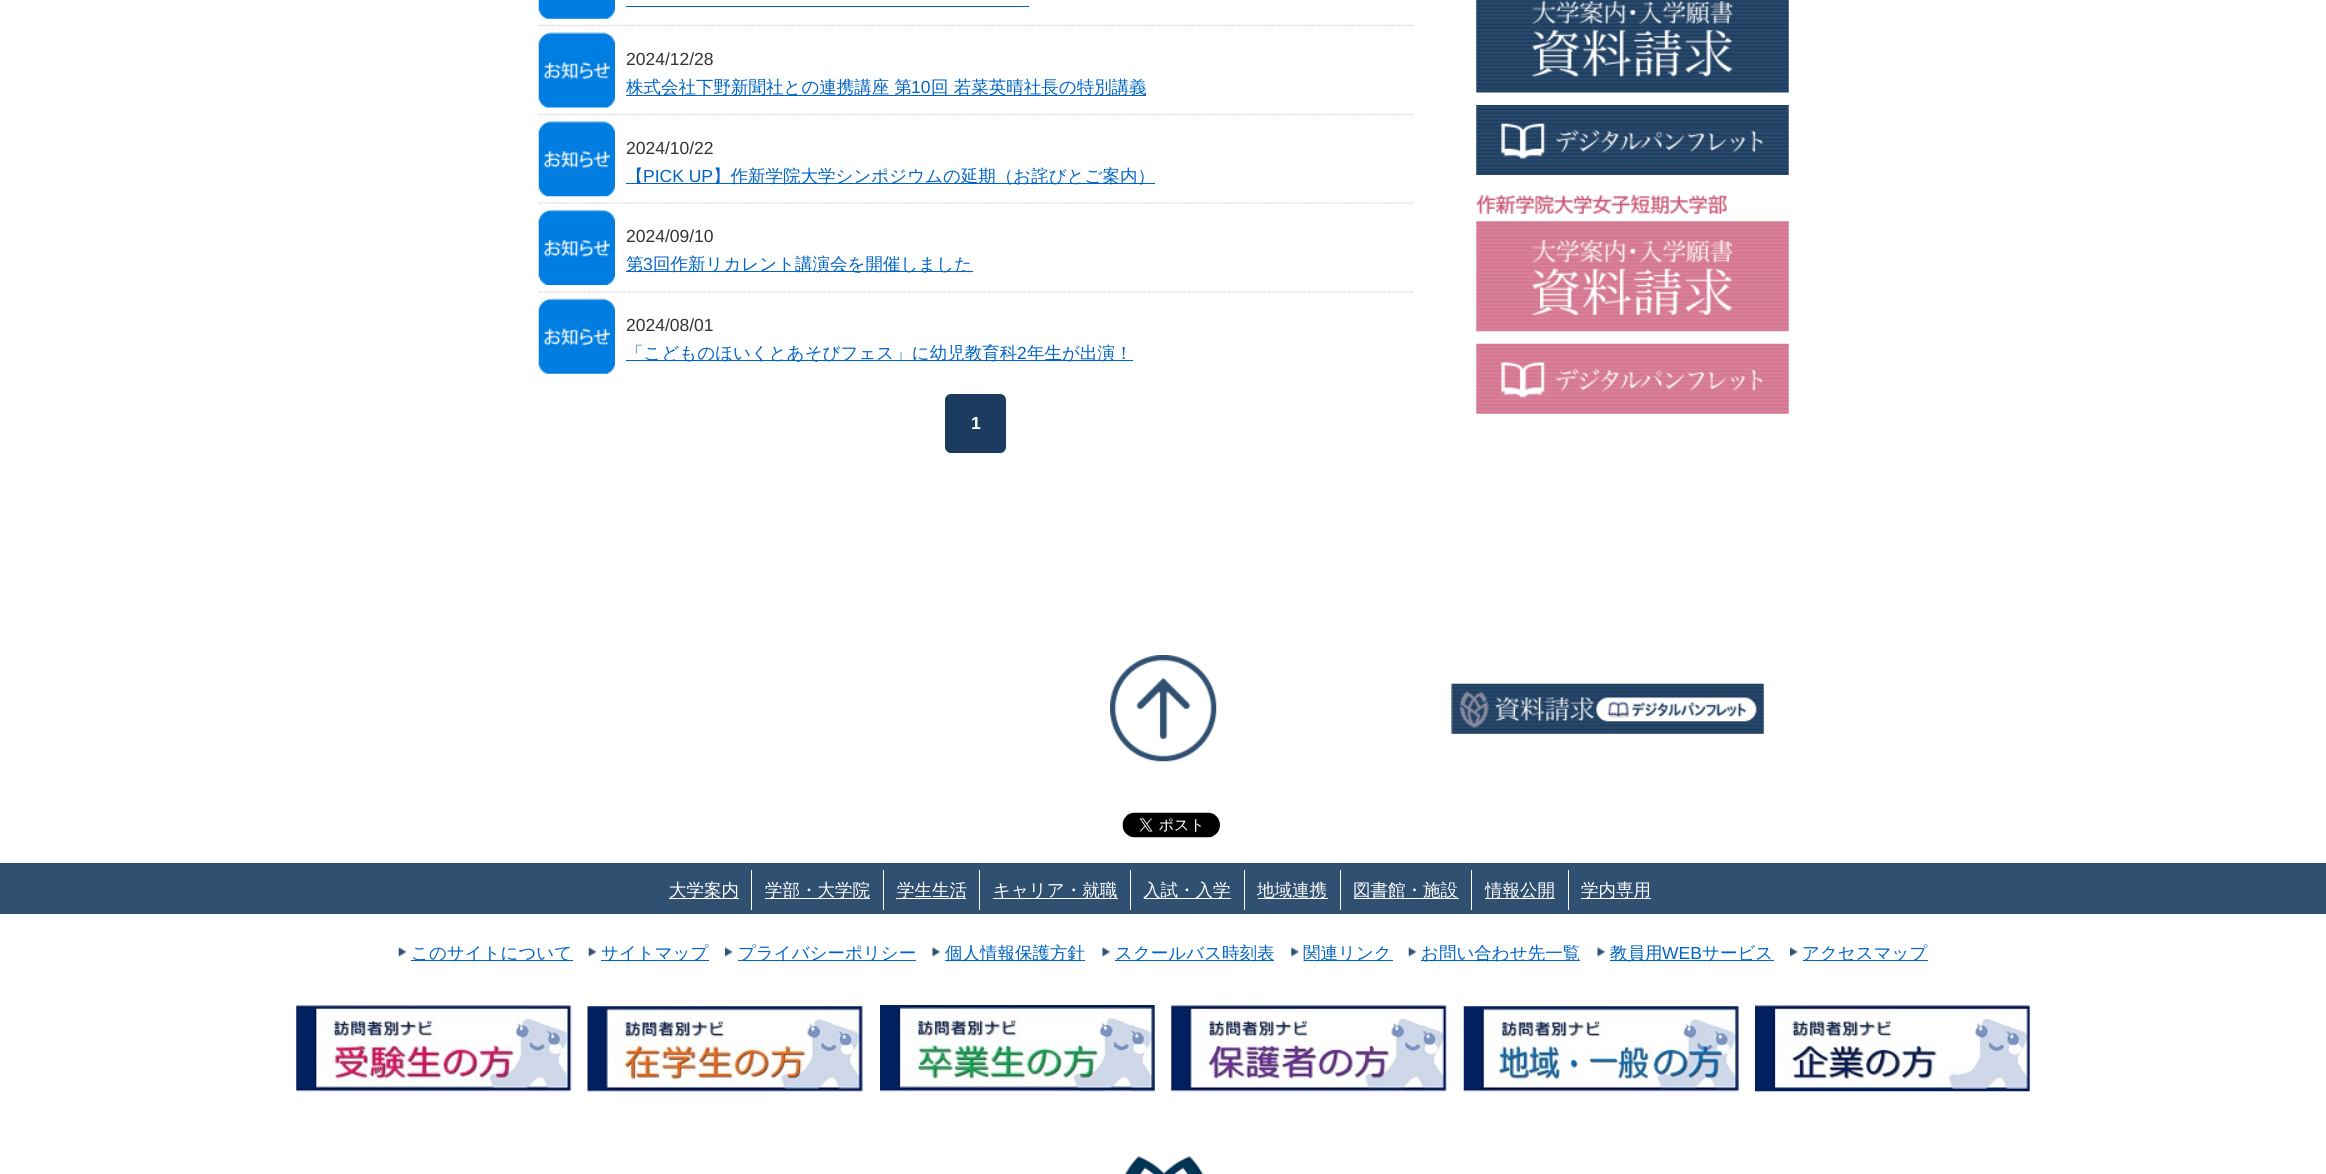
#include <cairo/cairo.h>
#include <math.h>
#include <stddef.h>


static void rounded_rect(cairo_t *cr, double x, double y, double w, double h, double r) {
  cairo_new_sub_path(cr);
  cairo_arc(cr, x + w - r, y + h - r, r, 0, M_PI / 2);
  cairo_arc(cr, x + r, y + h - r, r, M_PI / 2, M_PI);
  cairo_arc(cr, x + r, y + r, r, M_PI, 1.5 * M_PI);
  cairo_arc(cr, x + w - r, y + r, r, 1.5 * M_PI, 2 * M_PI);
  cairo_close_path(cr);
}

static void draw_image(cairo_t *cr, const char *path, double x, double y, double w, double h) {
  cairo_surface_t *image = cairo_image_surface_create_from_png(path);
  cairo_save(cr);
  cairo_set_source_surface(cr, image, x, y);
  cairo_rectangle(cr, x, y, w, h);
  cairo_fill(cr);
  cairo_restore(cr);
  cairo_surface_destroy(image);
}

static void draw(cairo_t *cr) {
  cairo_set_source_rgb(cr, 1, 1, 1);
  cairo_paint(cr);
  draw_image(cr, "images/1.png", 538, 0, 77, 19);
  cairo_set_source_rgb(cr, 0, 99 / 255.0, 198 / 255.0);
  cairo_rectangle(cr, 626, 6, 403, 1);
  cairo_fill(cr);
  draw_image(cr, "images/2.png", 538, 32, 77, 76);
  cairo_new_path(cr);
  cairo_move_to(cr, 539, 25.5);
  cairo_line_to(cr, 1414, 25.5);
  cairo_set_source_rgb(cr, 204 / 255.0, 204 / 255.0, 204 / 255.0);
  cairo_set_line_width(cr, 1.2);
  cairo_set_dash(cr, (double[]){1.25, 1.25}, 2, 0);
  cairo_stroke(cr);
  cairo_set_source_rgb(cr, 0, 99 / 255.0, 198 / 255.0);
  cairo_rectangle(cr, 626, 95, 520, 1);
  cairo_fill(cr);
  draw_image(cr, "images/3.png", 538, 121, 77, 76);
  cairo_new_path(cr);
  cairo_move_to(cr, 539, 114.5);
  cairo_line_to(cr, 1414, 114.5);
  cairo_set_source_rgb(cr, 204 / 255.0, 204 / 255.0, 204 / 255.0);
  cairo_stroke(cr);
  cairo_set_source_rgb(cr, 0, 99 / 255.0, 198 / 255.0);
  cairo_rectangle(cr, 626, 183, 529, 1);
  cairo_fill(cr);
  draw_image(cr, "images/4.png", 538, 210, 77, 75);
  cairo_new_path(cr);
  cairo_move_to(cr, 539, 203);
  cairo_line_to(cr, 1414, 203);
  cairo_set_source_rgb(cr, 204 / 255.0, 204 / 255.0, 204 / 255.0);
  cairo_stroke(cr);
  cairo_set_source_rgb(cr, 0, 99 / 255.0, 198 / 255.0);
  cairo_rectangle(cr, 626, 271, 347, 1);
  cairo_fill(cr);
  draw_image(cr, "images/5.png", 538, 298, 77, 76);
  cairo_new_path(cr);
  cairo_move_to(cr, 539, 292);
  cairo_line_to(cr, 1414, 292);
  cairo_set_source_rgb(cr, 204 / 255.0, 204 / 255.0, 204 / 255.0);
  cairo_stroke(cr);
  cairo_set_source_rgb(cr, 0, 99 / 255.0, 198 / 255.0);
  cairo_rectangle(cr, 626, 360, 507, 1);
  cairo_fill(cr);
  cairo_set_source_rgb(cr, 27 / 255.0, 60 / 255.0, 95 / 255.0);
  rounded_rect(cr, 945.5, 394.5, 60, 58, 5.5);
  cairo_fill_preserve(cr);
  cairo_set_line_width(cr, 1);
  cairo_set_dash(cr, NULL, 0, 0);
  cairo_stroke(cr);
  draw_image(cr, "images/6.png", 1476, 0, 313, 93);
  draw_image(cr, "images/7.png", 1532, 1, 201, 76);
  draw_image(cr, "images/8.png", 1476, 105, 313, 70);
  draw_image(cr, "images/9.png", 1501, 123, 262, 36);
  draw_image(cr, "images/10.png", 1476, 195, 252, 20);
  draw_image(cr, "images/11.png", 1476, 221, 313, 111);
  draw_image(cr, "images/12.png", 1532, 240, 201, 75);
  draw_image(cr, "images/13.png", 1476, 343, 313, 71);
  draw_image(cr, "images/14.png", 1501, 362, 262, 36);
  draw_image(cr, "images/15.png", 1110, 655, 107, 107);
  draw_image(cr, "images/16.png", 1451, 683, 313, 51);
  draw_image(cr, "images/17.png", 1595, 696, 163, 26);
  draw_image(cr, "images/18.png", 1122, 812, 98, 26);
  cairo_set_source_rgb(cr, 48 / 255.0, 80 / 255.0, 114 / 255.0);
  cairo_rectangle(cr, 0, 863, 2326, 51);
  cairo_fill(cr);
  cairo_set_source_rgb(cr, 1, 1, 1);
  cairo_rectangle(cr, 669, 898, 70, 1);
  cairo_fill(cr);
  cairo_rectangle(cr, 751, 870, 1, 40);
  cairo_fill(cr);
  cairo_rectangle(cr, 765, 898, 105, 1);
  cairo_fill(cr);
  cairo_rectangle(cr, 883, 870, 1, 40);
  cairo_fill(cr);
  cairo_rectangle(cr, 896, 898, 70, 1);
  cairo_fill(cr);
  cairo_rectangle(cr, 979, 870, 1, 40);
  cairo_fill(cr);
  cairo_rectangle(cr, 993, 898, 125, 1);
  cairo_fill(cr);
  cairo_rectangle(cr, 1130, 870, 1, 40);
  cairo_fill(cr);
  cairo_rectangle(cr, 1144, 898, 87, 1);
  cairo_fill(cr);
  cairo_rectangle(cr, 1244, 870, 1, 40);
  cairo_fill(cr);
  cairo_rectangle(cr, 1258, 898, 70, 1);
  cairo_fill(cr);
  cairo_rectangle(cr, 1340, 870, 1, 40);
  cairo_fill(cr);
  cairo_rectangle(cr, 1354, 898, 105, 1);
  cairo_fill(cr);
  cairo_rectangle(cr, 1471, 870, 1, 40);
  cairo_fill(cr);
  cairo_rectangle(cr, 1485, 898, 70, 1);
  cairo_fill(cr);
  cairo_rectangle(cr, 1568, 870, 1, 40);
  cairo_fill(cr);
  cairo_rectangle(cr, 1581, 898, 70, 1);
  cairo_fill(cr);
  draw_image(cr, "images/19.png", 398, 947, 9, 10);
  cairo_set_source_rgb(cr, 0, 99 / 255.0, 198 / 255.0);
  cairo_rectangle(cr, 411, 960, 162, 1);
  cairo_fill(cr);
  draw_image(cr, "images/20.png", 588, 947, 9, 10);
  cairo_rectangle(cr, 601, 960, 108, 1);
  cairo_fill(cr);
  draw_image(cr, "images/21.png", 725, 947, 8, 10);
  cairo_rectangle(cr, 738, 960, 178, 1);
  cairo_fill(cr);
  draw_image(cr, "images/22.png", 932, 947, 8, 10);
  cairo_rectangle(cr, 945, 960, 140, 1);
  cairo_fill(cr);
  draw_image(cr, "images/22.png", 1102, 947, 8, 10);
  cairo_rectangle(cr, 1115, 960, 159, 1);
  cairo_fill(cr);
  draw_image(cr, "images/23.png", 1291, 947, 8, 10);
  cairo_rectangle(cr, 1304, 960, 89, 1);
  cairo_fill(cr);
  draw_image(cr, "images/19.png", 1408, 947, 9, 10);
  cairo_rectangle(cr, 1421, 960, 159, 1);
  cairo_fill(cr);
  draw_image(cr, "images/24.png", 1597, 947, 8, 10);
  cairo_rectangle(cr, 1610, 960, 164, 1);
  cairo_fill(cr);
  draw_image(cr, "images/21.png", 1790, 947, 8, 10);
  cairo_rectangle(cr, 1803, 960, 125, 1);
  cairo_fill(cr);
  draw_image(cr, "images/25.png", 296, 1005, 276, 87);
  draw_image(cr, "images/26.png", 587, 1006, 276, 86);
  draw_image(cr, "images/27.png", 880, 1005, 275, 87);
  draw_image(cr, "images/28.png", 1171, 1005, 276, 87);
  draw_image(cr, "images/29.png", 1463, 1006, 276, 86);
  draw_image(cr, "images/30.png", 1755, 1005, 275, 87);
  draw_image(cr, "images/31.png", 1124, 1156, 80, 18);
  cairo_select_font_face(cr, "Liberation Sans", CAIRO_FONT_SLANT_NORMAL, CAIRO_FONT_WEIGHT_NORMAL);
  cairo_set_font_size(cr, 17.5);
  cairo_set_source_rgb(cr, 50 / 255.0, 50 / 255.0, 50 / 255.0);
  cairo_move_to(cr, 626, 65);
  cairo_show_text(cr, "2024/12/28");
  cairo_select_font_face(cr, "WenQuanYi Zen Hei Medium", CAIRO_FONT_SLANT_NORMAL, CAIRO_FONT_WEIGHT_NORMAL);
  cairo_set_source_rgb(cr, 0, 99 / 255.0, 198 / 255.0);
  cairo_move_to(cr, 626, 93);
  cairo_show_text(cr, "株式会社下野新聞社との連携講座 第");
  cairo_select_font_face(cr, "Liberation Sans", CAIRO_FONT_SLANT_NORMAL, CAIRO_FONT_WEIGHT_NORMAL);
  cairo_move_to(cr, 911, 93);
  cairo_show_text(cr, "10");
  cairo_select_font_face(cr, "WenQuanYi Zen Hei Medium", CAIRO_FONT_SLANT_NORMAL, CAIRO_FONT_WEIGHT_NORMAL);
  cairo_move_to(cr, 931, 93);
  cairo_show_text(cr, "回 若菜英晴社長の特別講義");
  cairo_select_font_face(cr, "Liberation Sans", CAIRO_FONT_SLANT_NORMAL, CAIRO_FONT_WEIGHT_NORMAL);
  cairo_set_source_rgb(cr, 50 / 255.0, 50 / 255.0, 50 / 255.0);
  cairo_move_to(cr, 626, 154);
  cairo_show_text(cr, "2024/10/22");
  cairo_select_font_face(cr, "WenQuanYi Zen Hei Medium", CAIRO_FONT_SLANT_NORMAL, CAIRO_FONT_WEIGHT_NORMAL);
  cairo_set_source_rgb(cr, 0, 99 / 255.0, 198 / 255.0);
  cairo_move_to(cr, 626, 182);
  cairo_show_text(cr, "【");
  cairo_select_font_face(cr, "Liberation Sans", CAIRO_FONT_SLANT_NORMAL, CAIRO_FONT_WEIGHT_NORMAL);
  cairo_move_to(cr, 643, 182);
  cairo_show_text(cr, "PICK UP");
  cairo_select_font_face(cr, "WenQuanYi Zen Hei Medium", CAIRO_FONT_SLANT_NORMAL, CAIRO_FONT_WEIGHT_NORMAL);
  cairo_move_to(cr, 713, 182);
  cairo_show_text(cr, "】作新学院大学シンポジウムの延期（お詫びとご案内）");
  cairo_select_font_face(cr, "Liberation Sans", CAIRO_FONT_SLANT_NORMAL, CAIRO_FONT_WEIGHT_NORMAL);
  cairo_set_source_rgb(cr, 50 / 255.0, 50 / 255.0, 50 / 255.0);
  cairo_move_to(cr, 626, 242);
  cairo_show_text(cr, "2024/09/10");
  cairo_select_font_face(cr, "WenQuanYi Zen Hei Medium", CAIRO_FONT_SLANT_NORMAL, CAIRO_FONT_WEIGHT_NORMAL);
  cairo_set_source_rgb(cr, 0, 99 / 255.0, 198 / 255.0);
  cairo_move_to(cr, 626, 270);
  cairo_show_text(cr, "第");
  cairo_select_font_face(cr, "Liberation Sans", CAIRO_FONT_SLANT_NORMAL, CAIRO_FONT_WEIGHT_NORMAL);
  cairo_move_to(cr, 643, 270);
  cairo_show_text(cr, "3");
  cairo_select_font_face(cr, "WenQuanYi Zen Hei Medium", CAIRO_FONT_SLANT_NORMAL, CAIRO_FONT_WEIGHT_NORMAL);
  cairo_move_to(cr, 653, 270);
  cairo_show_text(cr, "回作新リカレント講演会を開催しました");
  cairo_select_font_face(cr, "Liberation Sans", CAIRO_FONT_SLANT_NORMAL, CAIRO_FONT_WEIGHT_NORMAL);
  cairo_set_source_rgb(cr, 50 / 255.0, 50 / 255.0, 50 / 255.0);
  cairo_move_to(cr, 626, 331);
  cairo_show_text(cr, "2024/08/01");
  cairo_select_font_face(cr, "WenQuanYi Zen Hei Medium", CAIRO_FONT_SLANT_NORMAL, CAIRO_FONT_WEIGHT_NORMAL);
  cairo_set_source_rgb(cr, 0, 99 / 255.0, 198 / 255.0);
  cairo_move_to(cr, 626, 359);
  cairo_show_text(cr, "「こどものほいくとあそびフェス」に幼児教育科");
  cairo_select_font_face(cr, "Liberation Sans", CAIRO_FONT_SLANT_NORMAL, CAIRO_FONT_WEIGHT_NORMAL);
  cairo_move_to(cr, 1017, 359);
  cairo_show_text(cr, "2");
  cairo_select_font_face(cr, "WenQuanYi Zen Hei Medium", CAIRO_FONT_SLANT_NORMAL, CAIRO_FONT_WEIGHT_NORMAL);
  cairo_move_to(cr, 1027, 359);
  cairo_show_text(cr, "年生が出演！");
  cairo_select_font_face(cr, "Liberation Sans", CAIRO_FONT_SLANT_NORMAL, CAIRO_FONT_WEIGHT_BOLD);
  cairo_set_source_rgb(cr, 1, 1, 1);
  cairo_move_to(cr, 971, 429);
  cairo_show_text(cr, "1");
  cairo_select_font_face(cr, "WenQuanYi Zen Hei Medium", CAIRO_FONT_SLANT_NORMAL, CAIRO_FONT_WEIGHT_NORMAL);
  cairo_move_to(cr, 669, 896);
  cairo_show_text(cr, "大学案内");
  cairo_move_to(cr, 765, 896);
  cairo_show_text(cr, "学部・大学院");
  cairo_move_to(cr, 897, 896);
  cairo_show_text(cr, "学生生活");
  cairo_move_to(cr, 993, 896);
  cairo_show_text(cr, "キャリア・就職");
  cairo_move_to(cr, 1143, 896);
  cairo_show_text(cr, "入試・入学");
  cairo_move_to(cr, 1257, 896);
  cairo_show_text(cr, "地域連携");
  cairo_move_to(cr, 1353, 896);
  cairo_show_text(cr, "図書館・施設");
  cairo_move_to(cr, 1485, 896);
  cairo_show_text(cr, "情報公開");
  cairo_move_to(cr, 1581, 896);
  cairo_show_text(cr, "学内専用");
  cairo_set_source_rgb(cr, 0, 99 / 255.0, 198 / 255.0);
  cairo_move_to(cr, 411, 959);
  cairo_show_text(cr, "このサイトについて");
  cairo_move_to(cr, 601, 959);
  cairo_show_text(cr, "サイトマップ");
  cairo_move_to(cr, 738, 959);
  cairo_show_text(cr, "プライバシーポリシー");
  cairo_move_to(cr, 945, 959);
  cairo_show_text(cr, "個人情報保護方針");
  cairo_move_to(cr, 1115, 959);
  cairo_show_text(cr, "スクールバス時刻表");
  cairo_move_to(cr, 1303, 959);
  cairo_show_text(cr, "関連リンク");
  cairo_move_to(cr, 1421, 959);
  cairo_show_text(cr, "お問い合わせ先一覧");
  cairo_move_to(cr, 1610, 959);
  cairo_show_text(cr, "教員用");
  cairo_select_font_face(cr, "Liberation Sans", CAIRO_FONT_SLANT_NORMAL, CAIRO_FONT_WEIGHT_NORMAL);
  cairo_move_to(cr, 1662, 959);
  cairo_show_text(cr, "WEB");
  cairo_select_font_face(cr, "WenQuanYi Zen Hei Medium", CAIRO_FONT_SLANT_NORMAL, CAIRO_FONT_WEIGHT_NORMAL);
  cairo_move_to(cr, 1702, 959);
  cairo_show_text(cr, "サービス");
  cairo_move_to(cr, 1802, 959);
  cairo_show_text(cr, "アクセスマップ");
}

int main(void) {
  cairo_surface_t *surface = cairo_image_surface_create(CAIRO_FORMAT_RGB24, 2326, 1174);
  cairo_t *cr = cairo_create(surface);
  cairo_font_options_t *options = cairo_font_options_create();
  cairo_font_options_set_hint_metrics(options, CAIRO_HINT_METRICS_OFF);
  cairo_font_options_set_hint_style(options, CAIRO_HINT_STYLE_NONE);
  cairo_set_font_options(cr, options);
  cairo_set_miter_limit(cr, 4);
  draw(cr);
  cairo_surface_write_to_png(surface, "out.png");
  cairo_font_options_destroy(options);
  cairo_destroy(cr);
  cairo_surface_destroy(surface);
  return 0;
}
